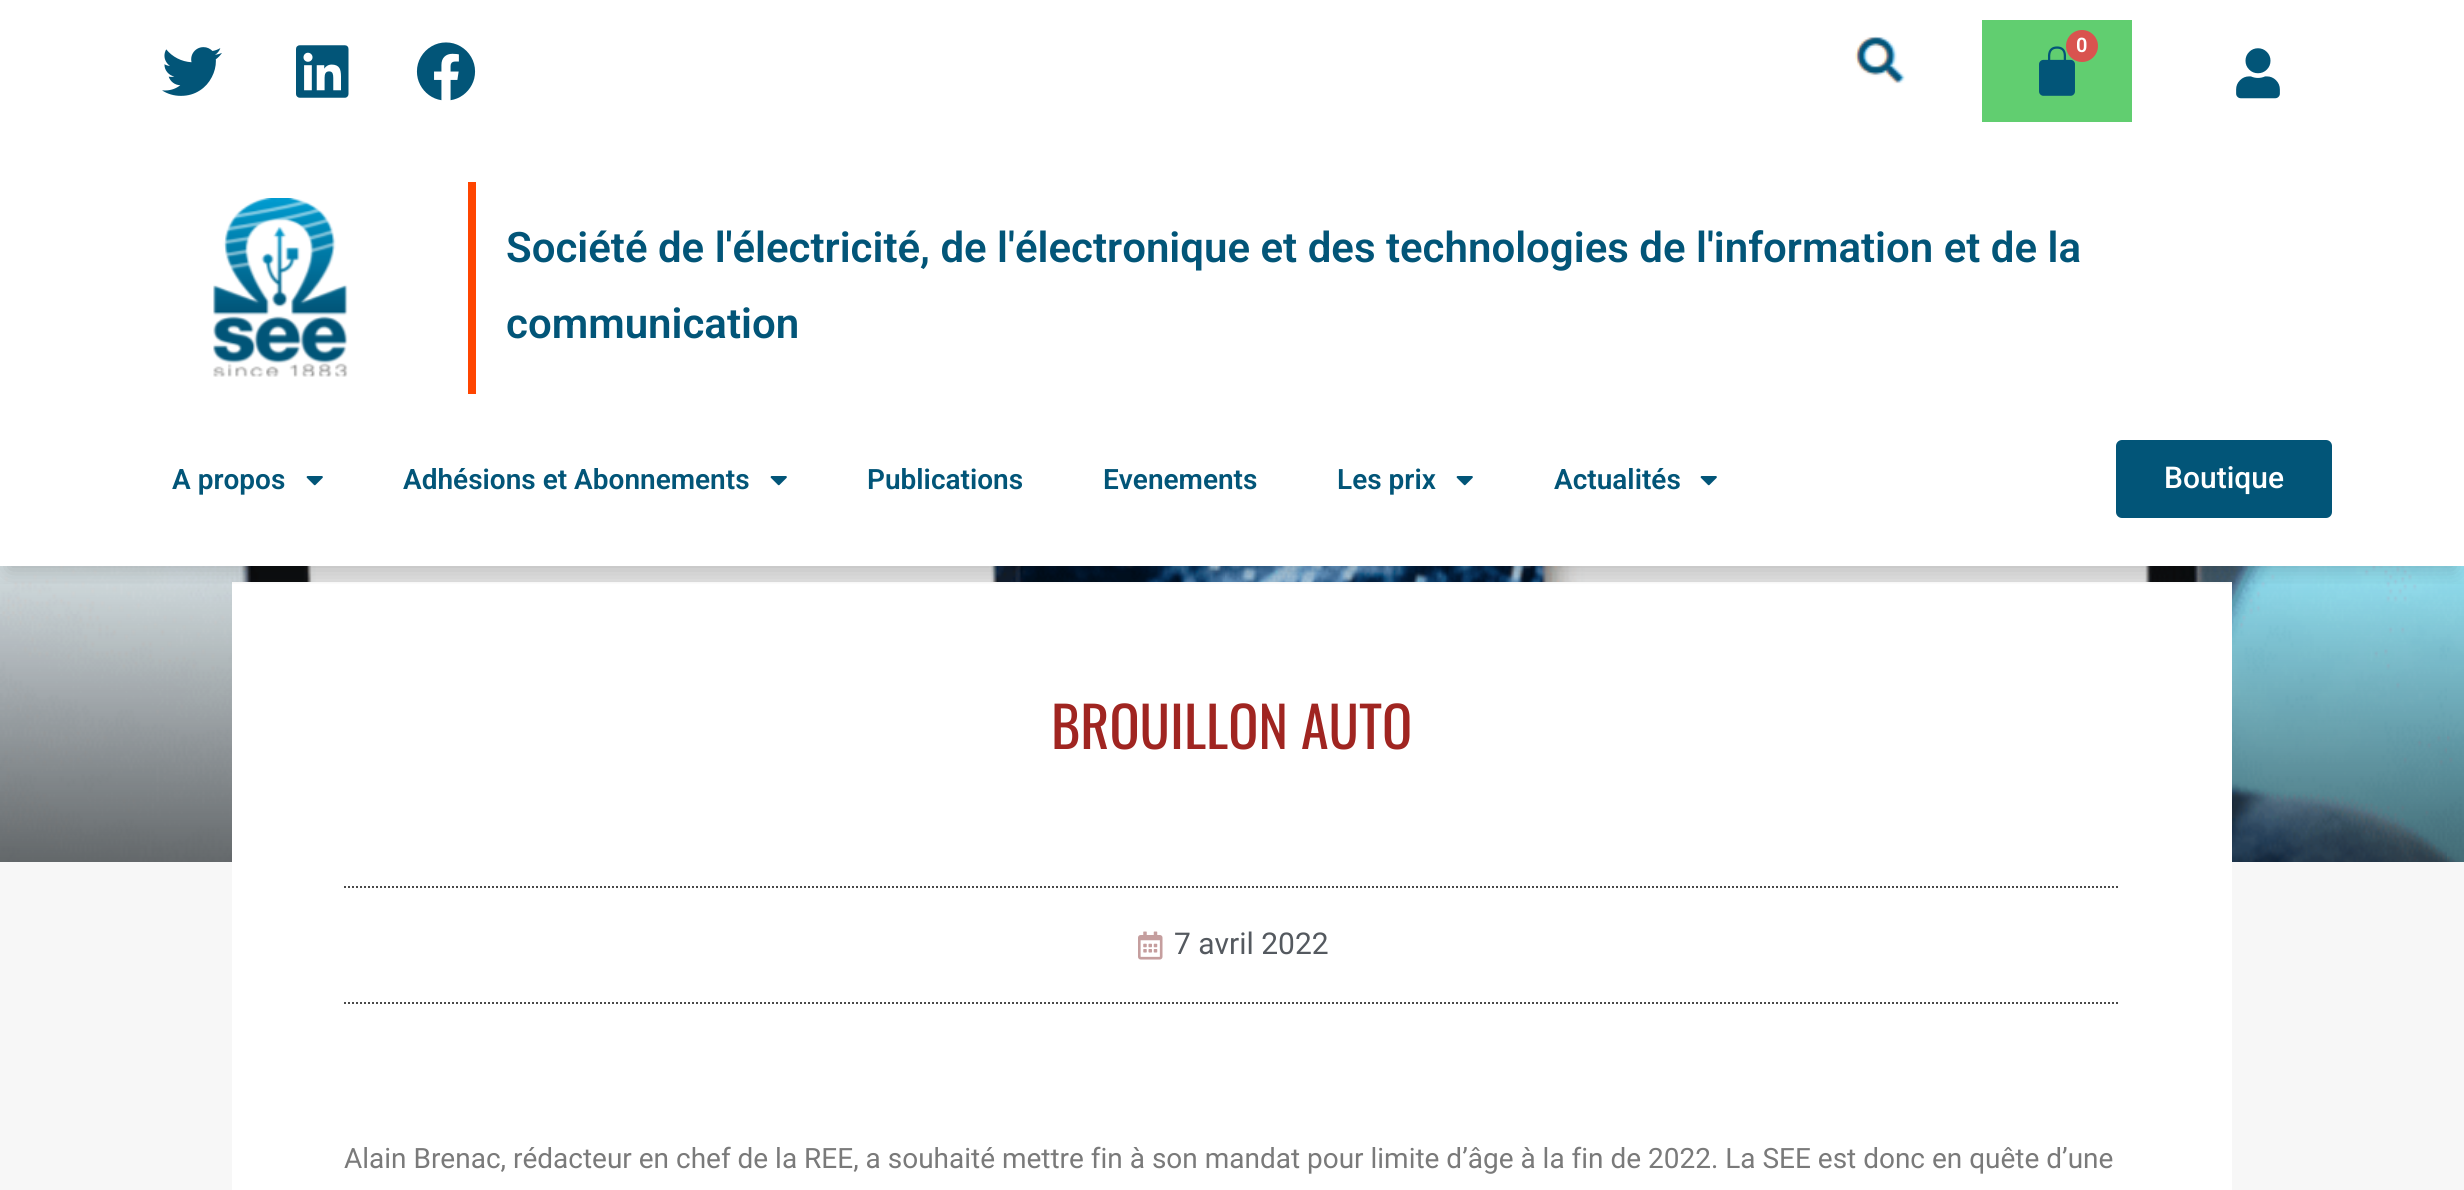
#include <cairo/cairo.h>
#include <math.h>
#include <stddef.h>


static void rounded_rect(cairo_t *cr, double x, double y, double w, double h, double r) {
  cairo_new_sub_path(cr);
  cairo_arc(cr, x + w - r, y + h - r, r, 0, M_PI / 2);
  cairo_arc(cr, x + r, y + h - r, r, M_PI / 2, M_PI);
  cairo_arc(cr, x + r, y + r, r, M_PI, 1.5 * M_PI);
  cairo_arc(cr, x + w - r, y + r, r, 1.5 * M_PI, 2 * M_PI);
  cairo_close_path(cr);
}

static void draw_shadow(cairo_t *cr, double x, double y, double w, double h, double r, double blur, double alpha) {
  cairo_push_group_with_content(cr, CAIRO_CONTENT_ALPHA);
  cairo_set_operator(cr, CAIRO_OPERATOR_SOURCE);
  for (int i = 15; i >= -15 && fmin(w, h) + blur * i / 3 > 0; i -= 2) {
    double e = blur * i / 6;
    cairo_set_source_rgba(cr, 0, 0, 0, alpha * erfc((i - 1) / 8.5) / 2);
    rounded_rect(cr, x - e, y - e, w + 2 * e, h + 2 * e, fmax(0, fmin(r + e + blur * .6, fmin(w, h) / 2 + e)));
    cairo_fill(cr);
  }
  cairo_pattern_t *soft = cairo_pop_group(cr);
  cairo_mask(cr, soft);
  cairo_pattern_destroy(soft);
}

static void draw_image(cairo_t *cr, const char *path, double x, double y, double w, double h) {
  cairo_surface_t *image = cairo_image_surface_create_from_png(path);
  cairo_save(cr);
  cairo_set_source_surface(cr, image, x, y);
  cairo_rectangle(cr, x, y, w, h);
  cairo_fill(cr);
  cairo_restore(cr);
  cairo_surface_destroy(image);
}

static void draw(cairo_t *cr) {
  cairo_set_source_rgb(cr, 1, 1, 1);
  cairo_paint(cr);
  draw_image(cr, "images/1.png", 162, 47, 60, 49);
  draw_image(cr, "images/2.png", 296, 45, 53, 53);
  draw_image(cr, "images/3.png", 416, 42, 60, 59);
  draw_image(cr, "images/4.png", 1855, 36, 51, 48);
  cairo_set_source_rgb(cr, 97 / 255.0, 206 / 255.0, 112 / 255.0);
  cairo_rectangle(cr, 1982, 20, 150, 102);
  cairo_fill(cr);
  draw_image(cr, "images/5.png", 2039, 46, 36, 50);
  cairo_set_source_rgb(cr, 217 / 255.0, 83 / 255.0, 79 / 255.0);
  cairo_arc(cr, 2082, 46, 16, 0, 2 * M_PI);
  cairo_fill(cr);
  draw_image(cr, "images/6.png", 2236, 48, 44, 51);
  draw_image(cr, "images/9.png", 0, 566, 2464, 296);
  cairo_set_source_rgb(cr, 247 / 255.0, 247 / 255.0, 247 / 255.0);
  cairo_rectangle(cr, 0, 862, 2464, 328);
  cairo_fill(cr);
  cairo_set_source_rgb(cr, 1, 1, 1);
  cairo_rectangle(cr, 232, 582, 2000, 608);
  cairo_fill(cr);
  cairo_save(cr);
  cairo_rectangle(cr, 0, 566, 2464, 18);
  cairo_clip(cr);
  cairo_set_source_rgb(cr, 0, 0, 0);
  draw_shadow(cr, 8, 162, 2448, 408, 0, 11, 0.2);
  cairo_restore(cr);
  draw_image(cr, "images/7.png", 213, 198, 135, 179);
  cairo_set_source_rgb(cr, 1, 69 / 255.0, 0);
  cairo_rectangle(cr, 468, 182, 8, 212);
  cairo_fill(cr);
  draw_image(cr, "images/8.png", 306, 476, 17, 10);
  draw_image(cr, "images/8.png", 770, 476, 17, 10);
  draw_image(cr, "images/8.png", 1456, 476, 17, 10);
  draw_image(cr, "images/8.png", 1700, 476, 17, 10);
  cairo_set_source_rgb(cr, 2 / 255.0, 85 / 255.0, 120 / 255.0);
  rounded_rect(cr, 2116, 440, 216, 78, 6);
  cairo_fill(cr);
  cairo_new_path(cr);
  cairo_move_to(cr, 344, 887);
  cairo_line_to(cr, 2120, 887);
  cairo_set_source_rgb(cr, 74 / 255.0, 74 / 255.0, 74 / 255.0);
  cairo_set_dash(cr, (double[]){2, 2}, 2, 0);
  cairo_stroke(cr);
  cairo_new_path(cr);
  cairo_move_to(cr, 344, 1003);
  cairo_line_to(cr, 2120, 1003);
  cairo_stroke(cr);
  draw_image(cr, "images/10.png", 1138, 931, 25, 29);
  cairo_select_font_face(cr, "Roboto SemiBold", CAIRO_FONT_SLANT_NORMAL, CAIRO_FONT_WEIGHT_NORMAL);
  cairo_set_font_size(cr, 20);
  cairo_set_source_rgb(cr, 1, 1, 1);
  cairo_move_to(cr, 2076, 52);
  cairo_show_text(cr, "0");
  cairo_set_font_size(cr, 42);
  cairo_set_source_rgb(cr, 2 / 255.0, 85 / 255.0, 120 / 255.0);
  cairo_move_to(cr, 506, 262);
  cairo_show_text(cr, "Société de l'électricité, de l'électronique et des technologies de l'information et de la");
  cairo_move_to(cr, 506, 338);
  cairo_show_text(cr, "communication");
  cairo_set_font_size(cr, 28);
  cairo_move_to(cr, 172, 489);
  cairo_show_text(cr, "A propos");
  cairo_move_to(cr, 403, 489);
  cairo_show_text(cr, "Adhésions et Abonnements");
  cairo_move_to(cr, 867, 489);
  cairo_show_text(cr, "Publications");
  cairo_move_to(cr, 1103, 489);
  cairo_show_text(cr, "Evenements");
  cairo_move_to(cr, 1337, 489);
  cairo_show_text(cr, "Les prix");
  cairo_move_to(cr, 1554, 489);
  cairo_show_text(cr, "Actualités");
  cairo_select_font_face(cr, "Roboto Medium", CAIRO_FONT_SLANT_NORMAL, CAIRO_FONT_WEIGHT_NORMAL);
  cairo_set_font_size(cr, 30);
  cairo_set_source_rgb(cr, 1, 1, 1);
  cairo_move_to(cr, 2164, 488);
  cairo_show_text(cr, "Boutique");
  cairo_select_font_face(cr, "Oswald", CAIRO_FONT_SLANT_NORMAL, CAIRO_FONT_WEIGHT_NORMAL);
  cairo_set_font_size(cr, 56);
  cairo_set_source_rgb(cr, 160 / 255.0, 37 / 255.0, 33 / 255.0);
  cairo_move_to(cr, 1051, 749);
  cairo_show_text(cr, "BROUILLON AUTO");
  cairo_select_font_face(cr, "Roboto", CAIRO_FONT_SLANT_NORMAL, CAIRO_FONT_WEIGHT_NORMAL);
  cairo_set_font_size(cr, 30);
  cairo_set_source_rgb(cr, 84 / 255.0, 89 / 255.0, 95 / 255.0);
  cairo_move_to(cr, 1174, 954);
  cairo_show_text(cr, "7 avril 2022");
  cairo_set_font_size(cr, 28);
  cairo_set_source_rgb(cr, 122 / 255.0, 122 / 255.0, 122 / 255.0);
  cairo_move_to(cr, 344, 1168);
  cairo_show_text(cr, "Alain Brenac, rédacteur en chef de la REE, a souhaité mettre fin à son mandat pour limite d’âge à la fin de 2022. La SEE est donc en quête d’une");
}

int main(void) {
  cairo_surface_t *surface = cairo_image_surface_create(CAIRO_FORMAT_RGB24, 2464, 1190);
  cairo_t *cr = cairo_create(surface);
  cairo_font_options_t *options = cairo_font_options_create();
  cairo_font_options_set_hint_metrics(options, CAIRO_HINT_METRICS_OFF);
  cairo_font_options_set_hint_style(options, CAIRO_HINT_STYLE_NONE);
  cairo_set_font_options(cr, options);
  cairo_set_miter_limit(cr, 4);
  draw(cr);
  cairo_surface_write_to_png(surface, "out.png");
  cairo_font_options_destroy(options);
  cairo_destroy(cr);
  cairo_surface_destroy(surface);
  return 0;
}
